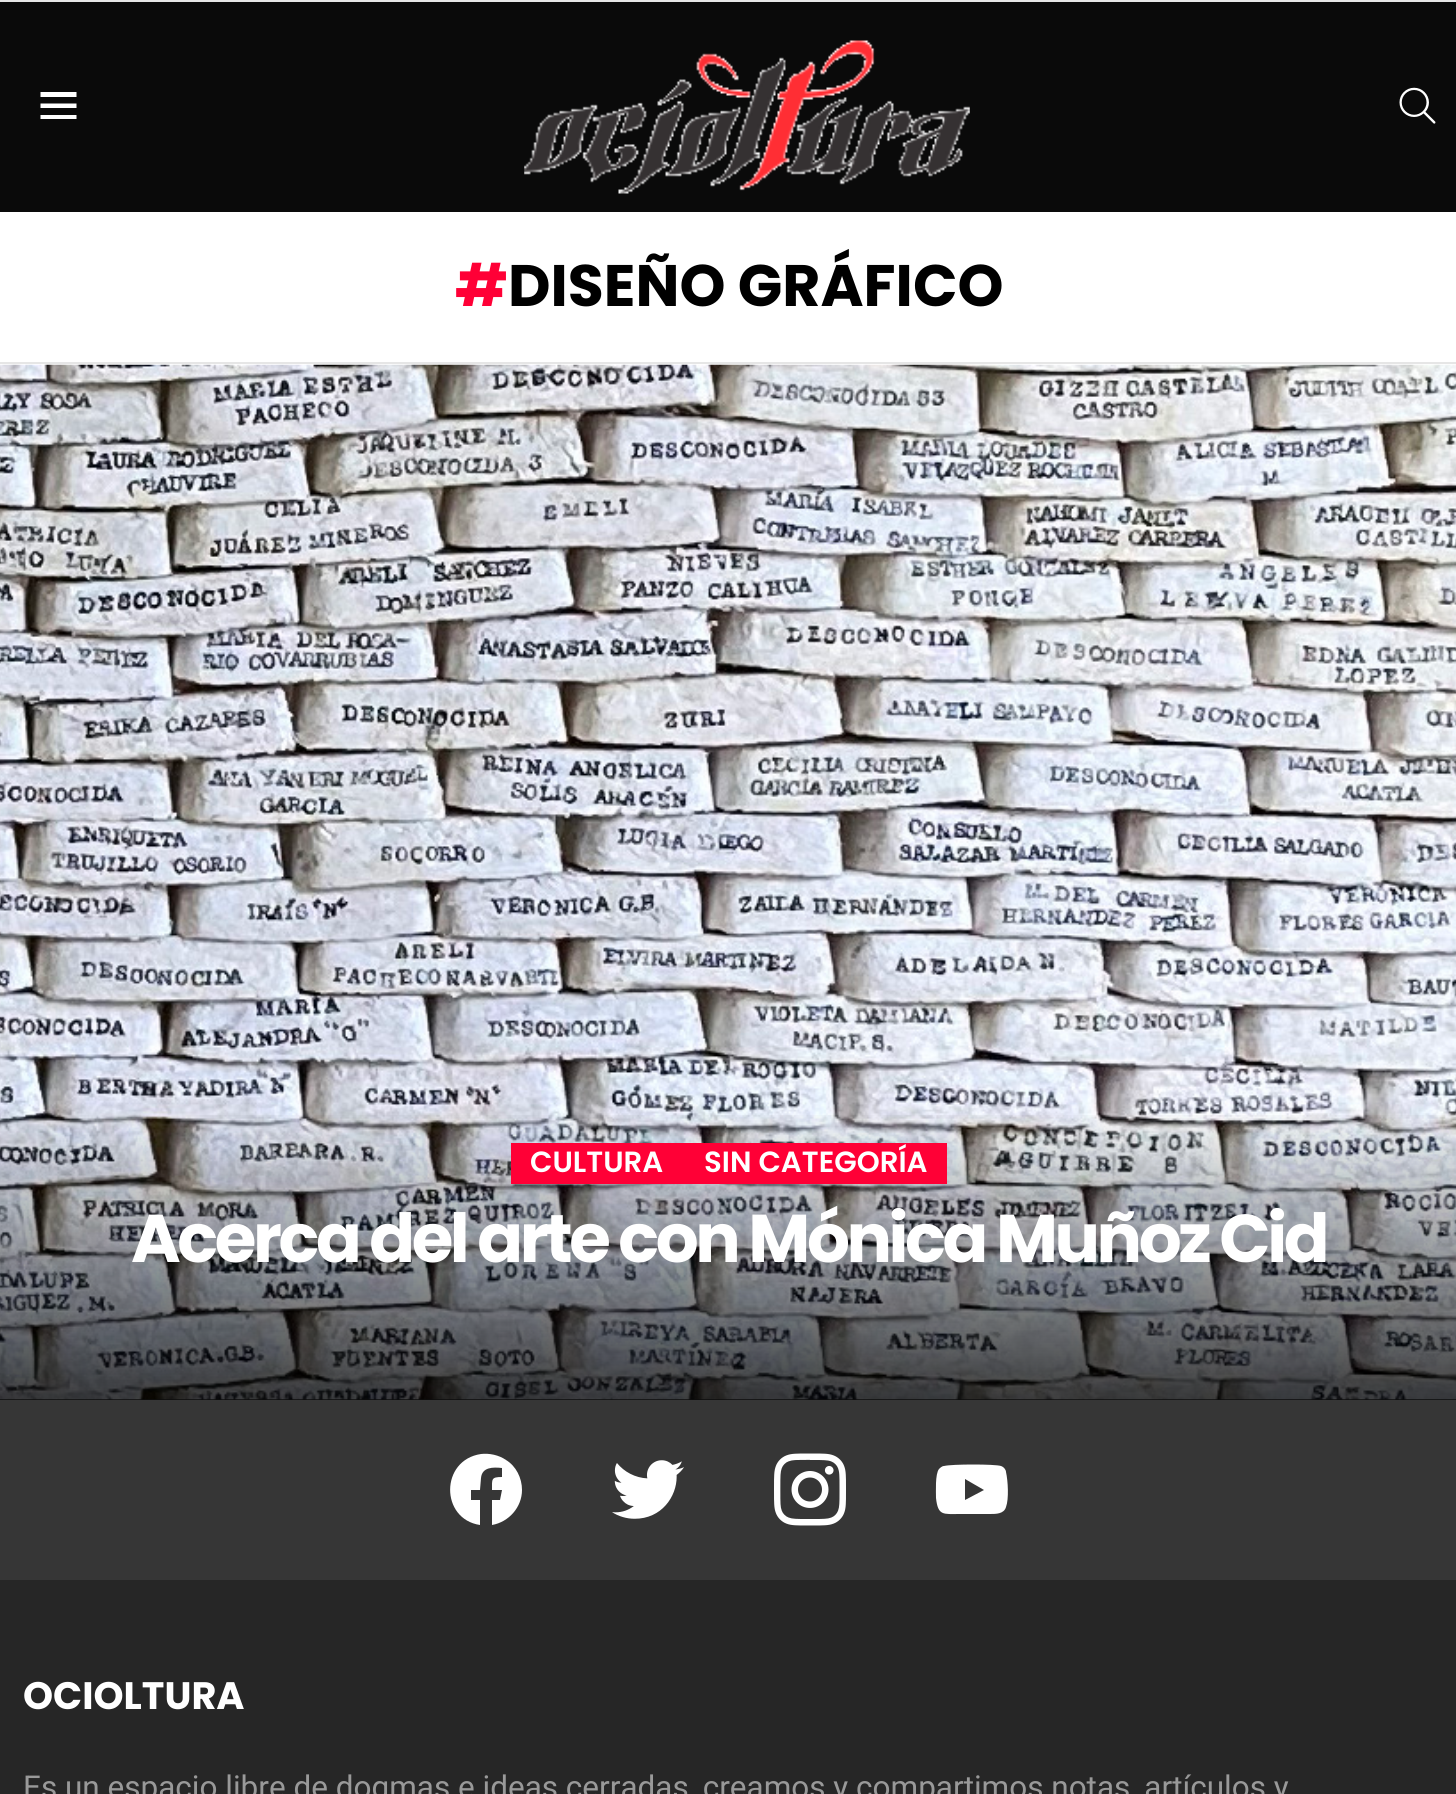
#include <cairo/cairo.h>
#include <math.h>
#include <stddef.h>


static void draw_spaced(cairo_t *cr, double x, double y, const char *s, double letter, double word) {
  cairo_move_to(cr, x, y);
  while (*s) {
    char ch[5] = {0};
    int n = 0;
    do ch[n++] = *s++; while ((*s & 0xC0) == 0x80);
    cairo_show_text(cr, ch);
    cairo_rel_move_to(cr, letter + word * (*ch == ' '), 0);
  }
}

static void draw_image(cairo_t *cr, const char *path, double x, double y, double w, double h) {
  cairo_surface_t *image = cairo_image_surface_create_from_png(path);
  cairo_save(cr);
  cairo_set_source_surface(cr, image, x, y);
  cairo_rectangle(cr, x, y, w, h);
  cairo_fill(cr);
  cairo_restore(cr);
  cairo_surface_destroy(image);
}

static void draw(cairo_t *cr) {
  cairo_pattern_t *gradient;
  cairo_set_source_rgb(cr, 1, 1, 1);
  cairo_paint(cr);
  cairo_set_source_rgb(cr, 230 / 255.0, 230 / 255.0, 230 / 255.0);
  cairo_rectangle(cr, 0, 0, 1456, 2);
  cairo_fill(cr);
  cairo_set_source_rgb(cr, 10 / 255.0, 10 / 255.0, 10 / 255.0);
  cairo_rectangle(cr, 0, 2, 1456, 210);
  cairo_fill(cr);
  cairo_set_source_rgb(cr, 1, 1, 1);
  cairo_new_path(cr);
  cairo_move_to(cr, 40.5, 92);
  cairo_line_to(cr, 76.5, 92);
  cairo_line_to(cr, 76.5, 97);
  cairo_line_to(cr, 40.5, 97);
  cairo_close_path(cr);
  cairo_move_to(cr, 40.5, 103.5);
  cairo_line_to(cr, 76.5, 103.5);
  cairo_line_to(cr, 76.5, 108);
  cairo_line_to(cr, 40.5, 108);
  cairo_close_path(cr);
  cairo_move_to(cr, 40.5, 115);
  cairo_line_to(cr, 76.5, 115);
  cairo_line_to(cr, 76.5, 119);
  cairo_line_to(cr, 40.5, 119);
  cairo_close_path(cr);
  cairo_fill(cr);
  draw_image(cr, "images/1.png", 524, 40, 446, 154);
  draw_image(cr, "images/2.png", 1399, 87, 37, 37);
  cairo_set_source_rgb(cr, 230 / 255.0, 230 / 255.0, 230 / 255.0);
  cairo_rectangle(cr, 0, 362, 1456, 2);
  cairo_fill(cr);
  cairo_set_source_rgb(cr, 51 / 255.0, 51 / 255.0, 51 / 255.0);
  cairo_rectangle(cr, 0, 1399, 1456, 1);
  cairo_fill(cr);
  draw_image(cr, "images/3.png", 0, 364, 1456, 1036);
  gradient = cairo_pattern_create_linear(729, 1107, 729, 1400);
  cairo_pattern_add_color_stop_rgba(gradient, 0, 0, 0, 0, 0);
  cairo_pattern_add_color_stop_rgba(gradient, 1, 0, 0, 0, 0.75);
  cairo_set_source(cr, gradient);
  cairo_pattern_destroy(gradient);
  cairo_rectangle(cr, 0, 1115, 1456, 285);
  cairo_fill(cr);
  cairo_set_source_rgb(cr, 1, 0, 54 / 255.0);
  cairo_rectangle(cr, 511, 1143, 436, 41);
  cairo_fill(cr);
  cairo_set_source_rgb(cr, 54 / 255.0, 54 / 255.0, 54 / 255.0);
  cairo_rectangle(cr, 0, 1400, 1456, 180);
  cairo_fill(cr);
  cairo_set_source_rgb(cr, 1, 1, 1);
  cairo_new_path(cr);
  cairo_move_to(cr, 522, 1490);
  cairo_curve_to(cr, 522, 1478, 516, 1466, 506, 1460);
  cairo_curve_to(cr, 499, 1455, 489, 1453, 481, 1454);
  cairo_curve_to(cr, 440, 1460, 440, 1519, 480, 1525);
  cairo_line_to(cr, 480, 1500);
  cairo_line_to(cr, 471, 1500);
  cairo_line_to(cr, 471, 1490);
  cairo_line_to(cr, 480, 1490);
  cairo_line_to(cr, 481, 1478);
  cairo_curve_to(cr, 482, 1467, 493, 1467, 502, 1468);
  cairo_line_to(cr, 502, 1477);
  cairo_curve_to(cr, 491, 1477, 492, 1479, 492, 1490);
  cairo_line_to(cr, 502, 1490);
  cairo_line_to(cr, 500, 1500);
  cairo_line_to(cr, 492, 1500);
  cairo_line_to(cr, 492, 1525);
  cairo_curve_to(cr, 509, 1522, 522, 1507, 522, 1490);
  cairo_close_path(cr);
  cairo_fill(cr);
  draw_image(cr, "images/4.png", 612, 1460, 72, 59);
  draw_image(cr, "images/5.png", 774, 1453, 72, 73);
  cairo_new_path(cr);
  cairo_move_to(cr, 1006, 1472);
  cairo_curve_to(cr, 1006, 1470, 1004, 1467, 1001, 1466);
  cairo_curve_to(cr, 995, 1464, 952, 1464, 944, 1466);
  cairo_curve_to(cr, 942, 1466, 940, 1468, 939, 1469);
  cairo_curve_to(cr, 935, 1474, 936, 1492, 936, 1498);
  cairo_curve_to(cr, 938, 1516, 943, 1514, 960, 1514);
  cairo_line_to(cr, 990, 1514);
  cairo_curve_to(cr, 996, 1514, 1004, 1514, 1006, 1507);
  cairo_curve_to(cr, 1009, 1499, 1008, 1481, 1006, 1472);
  cairo_close_path(cr);
  cairo_move_to(cr, 965, 1500);
  cairo_line_to(cr, 965, 1479);
  cairo_line_to(cr, 984, 1490);
  cairo_close_path(cr);
  cairo_fill(cr);
  cairo_set_source_rgb(cr, 38 / 255.0, 38 / 255.0, 38 / 255.0);
  cairo_rectangle(cr, 0, 1580, 1456, 214);
  cairo_fill(cr);
  cairo_select_font_face(cr, "Poppins", CAIRO_FONT_SLANT_NORMAL, CAIRO_FONT_WEIGHT_BOLD);
  cairo_set_font_size(cr, 58.5);
  cairo_set_source_rgb(cr, 1, 0, 54 / 255.0);
  cairo_move_to(cr, 455, 306);
  cairo_show_text(cr, "#");
  cairo_set_source_rgb(cr, 0, 0, 0);
  cairo_move_to(cr, 508, 306);
  cairo_show_text(cr, "DISEÑO GRÁFICO");
  cairo_select_font_face(cr, "Poppins SemiBold", CAIRO_FONT_SLANT_NORMAL, CAIRO_FONT_WEIGHT_NORMAL);
  cairo_set_font_size(cr, 29.25);
  cairo_set_source_rgb(cr, 1, 1, 1);
  cairo_move_to(cr, 530, 1172);
  cairo_show_text(cr, "CULTURA");
  cairo_move_to(cr, 704, 1172);
  cairo_show_text(cr, "SIN CATEGORÍA");
  cairo_select_font_face(cr, "Poppins", CAIRO_FONT_SLANT_NORMAL, CAIRO_FONT_WEIGHT_BOLD);
  cairo_set_font_size(cr, 67.5);
  draw_spaced(cr, 131, 1262, "Acerca del arte con Mónica Muñoz Cid", -3.4, 0);
  cairo_set_font_size(cr, 38.25);
  cairo_move_to(cr, 23, 1709);
  cairo_show_text(cr, "OCIOLTURA");
  cairo_select_font_face(cr, "Roboto", CAIRO_FONT_SLANT_NORMAL, CAIRO_FONT_WEIGHT_NORMAL);
  cairo_set_font_size(cr, 31.5);
  cairo_set_source_rgb(cr, 153 / 255.0, 153 / 255.0, 153 / 255.0);
  cairo_move_to(cr, 23, 1798);
  cairo_show_text(cr, "Es un espacio libre de dogmas e ideas cerradas, creamos y compartimos notas, artículos y");
}

int main(void) {
  cairo_surface_t *surface = cairo_image_surface_create(CAIRO_FORMAT_RGB24, 1456, 1794);
  cairo_t *cr = cairo_create(surface);
  cairo_font_options_t *options = cairo_font_options_create();
  cairo_font_options_set_hint_metrics(options, CAIRO_HINT_METRICS_OFF);
  cairo_font_options_set_hint_style(options, CAIRO_HINT_STYLE_NONE);
  cairo_set_font_options(cr, options);
  cairo_set_miter_limit(cr, 4);
  draw(cr);
  cairo_surface_write_to_png(surface, "out.png");
  cairo_font_options_destroy(options);
  cairo_destroy(cr);
  cairo_surface_destroy(surface);
  return 0;
}
